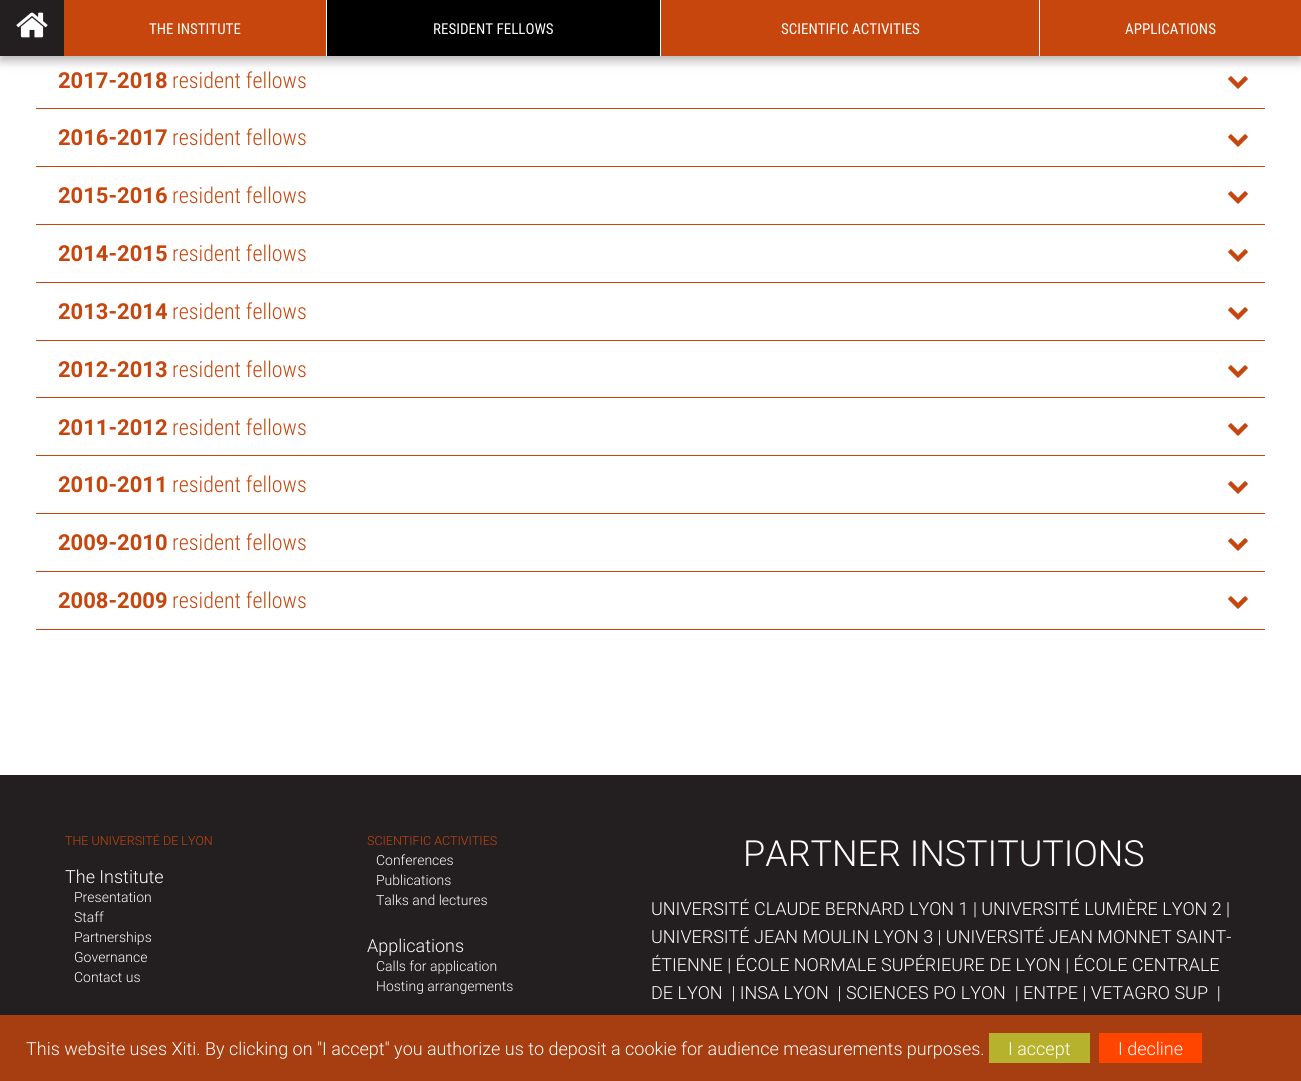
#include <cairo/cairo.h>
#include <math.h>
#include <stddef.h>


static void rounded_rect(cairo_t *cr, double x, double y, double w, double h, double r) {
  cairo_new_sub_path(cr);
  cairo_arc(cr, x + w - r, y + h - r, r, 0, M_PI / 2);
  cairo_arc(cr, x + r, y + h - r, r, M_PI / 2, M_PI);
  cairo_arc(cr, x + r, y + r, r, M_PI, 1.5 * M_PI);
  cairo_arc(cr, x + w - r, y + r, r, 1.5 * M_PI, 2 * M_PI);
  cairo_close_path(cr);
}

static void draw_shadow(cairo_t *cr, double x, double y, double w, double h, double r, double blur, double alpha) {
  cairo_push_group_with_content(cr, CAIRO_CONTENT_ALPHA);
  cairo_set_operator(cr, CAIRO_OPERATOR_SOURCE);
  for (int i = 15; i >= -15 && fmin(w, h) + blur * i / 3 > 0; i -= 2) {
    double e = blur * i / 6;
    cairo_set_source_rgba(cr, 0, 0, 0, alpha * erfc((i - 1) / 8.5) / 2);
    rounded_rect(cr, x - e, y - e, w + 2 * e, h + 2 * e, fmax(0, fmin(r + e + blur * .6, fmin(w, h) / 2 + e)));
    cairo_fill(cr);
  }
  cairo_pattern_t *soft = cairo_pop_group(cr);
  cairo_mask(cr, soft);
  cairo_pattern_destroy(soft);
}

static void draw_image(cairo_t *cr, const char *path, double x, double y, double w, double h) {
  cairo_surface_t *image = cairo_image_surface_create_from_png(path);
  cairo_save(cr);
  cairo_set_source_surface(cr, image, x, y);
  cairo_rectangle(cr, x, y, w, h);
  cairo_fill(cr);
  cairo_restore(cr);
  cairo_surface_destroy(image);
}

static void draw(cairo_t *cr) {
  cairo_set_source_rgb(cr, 1, 1, 1);
  cairo_paint(cr);
  draw_image(cr, "images/2.png", 1228, 76, 20, 13);
  cairo_set_source_rgb(cr, 105 / 255.0, 95 / 255.0, 95 / 255.0);
  draw_shadow(cr, 0, 5, 1301, 56, 0, 5, 0.46);
  cairo_set_source_rgb(cr, 35 / 255.0, 31 / 255.0, 32 / 255.0);
  cairo_rectangle(cr, 0, 0, 64, 56);
  cairo_fill(cr);
  draw_image(cr, "images/1.png", 16, 12, 32, 26);
  cairo_set_source_rgb(cr, 198 / 255.0, 70 / 255.0, 14 / 255.0);
  cairo_rectangle(cr, 64, 0, 1237, 56);
  cairo_fill(cr);
  cairo_set_source_rgb(cr, 1, 1, 1);
  cairo_rectangle(cr, 326, 0, 1, 56);
  cairo_fill(cr);
  cairo_set_source_rgb(cr, 0, 0, 0);
  cairo_rectangle(cr, 327, 0, 333, 56);
  cairo_fill(cr);
  cairo_set_source_rgb(cr, 1, 1, 1);
  cairo_rectangle(cr, 660, 0, 1, 56);
  cairo_fill(cr);
  cairo_rectangle(cr, 1039, 0, 1, 56);
  cairo_fill(cr);
  cairo_set_source_rgb(cr, 198 / 255.0, 70 / 255.0, 14 / 255.0);
  cairo_rectangle(cr, 36, 108, 1229, 1);
  cairo_fill(cr);
  cairo_rectangle(cr, 36, 166, 1229, 1);
  cairo_fill(cr);
  draw_image(cr, "images/2.png", 1228, 134, 20, 13);
  cairo_rectangle(cr, 36, 224, 1229, 1);
  cairo_fill(cr);
  draw_image(cr, "images/2.png", 1228, 191, 20, 13);
  cairo_rectangle(cr, 36, 282, 1229, 1);
  cairo_fill(cr);
  draw_image(cr, "images/2.png", 1228, 249, 20, 13);
  cairo_rectangle(cr, 36, 340, 1229, 1);
  cairo_fill(cr);
  draw_image(cr, "images/2.png", 1228, 307, 20, 13);
  cairo_rectangle(cr, 36, 397, 1229, 1);
  cairo_fill(cr);
  draw_image(cr, "images/2.png", 1228, 365, 20, 13);
  cairo_rectangle(cr, 36, 455, 1229, 1);
  cairo_fill(cr);
  draw_image(cr, "images/2.png", 1228, 423, 20, 13);
  cairo_rectangle(cr, 36, 513, 1229, 1);
  cairo_fill(cr);
  draw_image(cr, "images/2.png", 1228, 481, 20, 13);
  cairo_rectangle(cr, 36, 571, 1229, 1);
  cairo_fill(cr);
  draw_image(cr, "images/2.png", 1228, 538, 20, 13);
  cairo_rectangle(cr, 36, 629, 1229, 1);
  cairo_fill(cr);
  draw_image(cr, "images/2.png", 1228, 596, 20, 13);
  cairo_set_source_rgb(cr, 35 / 255.0, 31 / 255.0, 32 / 255.0);
  cairo_rectangle(cr, 0, 775, 1301, 306);
  cairo_fill(cr);
  cairo_set_source_rgba(cr, 198 / 255.0, 70 / 255.0, 14 / 255.0, 0.8);
  cairo_rectangle(cr, 0, 1015, 1301, 66);
  cairo_fill(cr);
  cairo_set_source_rgb(cr, 183 / 255.0, 178 / 255.0, 46 / 255.0);
  cairo_rectangle(cr, 989, 1033, 101, 30);
  cairo_fill(cr);
  cairo_set_source_rgb(cr, 1, 69 / 255.0, 0);
  cairo_rectangle(cr, 1099, 1033, 103, 30);
  cairo_fill(cr);
  cairo_select_font_face(cr, "Roboto Condensed", CAIRO_FONT_SLANT_NORMAL, CAIRO_FONT_WEIGHT_NORMAL);
  cairo_set_font_size(cr, 15);
  cairo_set_source_rgb(cr, 1, 1, 1);
  cairo_move_to(cr, 149, 34);
  cairo_show_text(cr, "THE INSTITUTE");
  cairo_move_to(cr, 433, 34);
  cairo_show_text(cr, "RESIDENT FELLOWS");
  cairo_move_to(cr, 781, 34);
  cairo_show_text(cr, "SCIENTIFIC ACTIVITIES");
  cairo_move_to(cr, 1125, 34);
  cairo_show_text(cr, "APPLICATIONS");
  cairo_select_font_face(cr, "Roboto", CAIRO_FONT_SLANT_NORMAL, CAIRO_FONT_WEIGHT_BOLD);
  cairo_set_font_size(cr, 22);
  cairo_set_source_rgb(cr, 198 / 255.0, 70 / 255.0, 14 / 255.0);
  cairo_move_to(cr, 58, 88);
  cairo_show_text(cr, "2017-2018");
  cairo_select_font_face(cr, "Roboto Condensed Light", CAIRO_FONT_SLANT_NORMAL, CAIRO_FONT_WEIGHT_NORMAL);
  cairo_move_to(cr, 172, 88);
  cairo_show_text(cr, "resident fellows");
  cairo_select_font_face(cr, "Roboto", CAIRO_FONT_SLANT_NORMAL, CAIRO_FONT_WEIGHT_BOLD);
  cairo_move_to(cr, 58, 145);
  cairo_show_text(cr, "2016-2017");
  cairo_select_font_face(cr, "Roboto Condensed Light", CAIRO_FONT_SLANT_NORMAL, CAIRO_FONT_WEIGHT_NORMAL);
  cairo_move_to(cr, 172, 145);
  cairo_show_text(cr, "resident fellows");
  cairo_select_font_face(cr, "Roboto", CAIRO_FONT_SLANT_NORMAL, CAIRO_FONT_WEIGHT_BOLD);
  cairo_move_to(cr, 58, 203);
  cairo_show_text(cr, "2015-2016");
  cairo_select_font_face(cr, "Roboto Condensed Light", CAIRO_FONT_SLANT_NORMAL, CAIRO_FONT_WEIGHT_NORMAL);
  cairo_move_to(cr, 172, 203);
  cairo_show_text(cr, "resident fellows");
  cairo_select_font_face(cr, "Roboto", CAIRO_FONT_SLANT_NORMAL, CAIRO_FONT_WEIGHT_BOLD);
  cairo_move_to(cr, 58, 261);
  cairo_show_text(cr, "2014-2015");
  cairo_select_font_face(cr, "Roboto Condensed Light", CAIRO_FONT_SLANT_NORMAL, CAIRO_FONT_WEIGHT_NORMAL);
  cairo_move_to(cr, 172, 261);
  cairo_show_text(cr, "resident fellows");
  cairo_select_font_face(cr, "Roboto", CAIRO_FONT_SLANT_NORMAL, CAIRO_FONT_WEIGHT_BOLD);
  cairo_move_to(cr, 58, 319);
  cairo_show_text(cr, "2013-2014");
  cairo_select_font_face(cr, "Roboto Condensed Light", CAIRO_FONT_SLANT_NORMAL, CAIRO_FONT_WEIGHT_NORMAL);
  cairo_move_to(cr, 172, 319);
  cairo_show_text(cr, "resident fellows");
  cairo_select_font_face(cr, "Roboto", CAIRO_FONT_SLANT_NORMAL, CAIRO_FONT_WEIGHT_BOLD);
  cairo_move_to(cr, 58, 377);
  cairo_show_text(cr, "2012-2013");
  cairo_select_font_face(cr, "Roboto Condensed Light", CAIRO_FONT_SLANT_NORMAL, CAIRO_FONT_WEIGHT_NORMAL);
  cairo_move_to(cr, 172, 377);
  cairo_show_text(cr, "resident fellows");
  cairo_select_font_face(cr, "Roboto", CAIRO_FONT_SLANT_NORMAL, CAIRO_FONT_WEIGHT_BOLD);
  cairo_move_to(cr, 58, 435);
  cairo_show_text(cr, "2011-2012");
  cairo_select_font_face(cr, "Roboto Condensed Light", CAIRO_FONT_SLANT_NORMAL, CAIRO_FONT_WEIGHT_NORMAL);
  cairo_move_to(cr, 172, 435);
  cairo_show_text(cr, "resident fellows");
  cairo_select_font_face(cr, "Roboto", CAIRO_FONT_SLANT_NORMAL, CAIRO_FONT_WEIGHT_BOLD);
  cairo_move_to(cr, 58, 492);
  cairo_show_text(cr, "2010-2011");
  cairo_select_font_face(cr, "Roboto Condensed Light", CAIRO_FONT_SLANT_NORMAL, CAIRO_FONT_WEIGHT_NORMAL);
  cairo_move_to(cr, 172, 492);
  cairo_show_text(cr, "resident fellows");
  cairo_select_font_face(cr, "Roboto", CAIRO_FONT_SLANT_NORMAL, CAIRO_FONT_WEIGHT_BOLD);
  cairo_move_to(cr, 58, 550);
  cairo_show_text(cr, "2009-2010");
  cairo_select_font_face(cr, "Roboto Condensed Light", CAIRO_FONT_SLANT_NORMAL, CAIRO_FONT_WEIGHT_NORMAL);
  cairo_move_to(cr, 172, 550);
  cairo_show_text(cr, "resident fellows");
  cairo_select_font_face(cr, "Roboto", CAIRO_FONT_SLANT_NORMAL, CAIRO_FONT_WEIGHT_BOLD);
  cairo_move_to(cr, 58, 608);
  cairo_show_text(cr, "2008-2009");
  cairo_select_font_face(cr, "Roboto Condensed Light", CAIRO_FONT_SLANT_NORMAL, CAIRO_FONT_WEIGHT_NORMAL);
  cairo_move_to(cr, 172, 608);
  cairo_show_text(cr, "resident fellows");
  cairo_select_font_face(cr, "Roboto Light", CAIRO_FONT_SLANT_NORMAL, CAIRO_FONT_WEIGHT_NORMAL);
  cairo_set_font_size(cr, 12.5);
  cairo_move_to(cr, 65, 845);
  cairo_show_text(cr, "THE UNIVERSITÉ DE LYON");
  cairo_move_to(cr, 367, 845);
  cairo_show_text(cr, "SCIENTIFIC ACTIVITIES");
  cairo_set_font_size(cr, 14);
  cairo_set_source_rgb(cr, 1, 1, 1);
  cairo_move_to(cr, 376, 865);
  cairo_show_text(cr, "Conferences");
  cairo_move_to(cr, 376, 885);
  cairo_show_text(cr, "Publications");
  cairo_move_to(cr, 376, 905);
  cairo_show_text(cr, "Talks and lectures");
  cairo_set_font_size(cr, 18);
  cairo_move_to(cr, 65, 883);
  cairo_show_text(cr, "The Institute");
  cairo_set_font_size(cr, 14);
  cairo_move_to(cr, 74, 902);
  cairo_show_text(cr, "Presentation");
  cairo_move_to(cr, 74, 922);
  cairo_show_text(cr, "Staff");
  cairo_move_to(cr, 74, 942);
  cairo_show_text(cr, "Partnerships");
  cairo_move_to(cr, 74, 962);
  cairo_show_text(cr, "Governance");
  cairo_move_to(cr, 74, 982);
  cairo_show_text(cr, "Contact us");
  cairo_set_font_size(cr, 18);
  cairo_move_to(cr, 367, 952);
  cairo_show_text(cr, "Applications");
  cairo_set_font_size(cr, 14);
  cairo_move_to(cr, 376, 971);
  cairo_show_text(cr, "Calls for application");
  cairo_move_to(cr, 376, 991);
  cairo_show_text(cr, "Hosting arrangements");
  cairo_set_font_size(cr, 36);
  cairo_move_to(cr, 743, 866);
  cairo_show_text(cr, "PARTNER INSTITUTIONS");
  cairo_set_font_size(cr, 18);
  cairo_move_to(cr, 651, 915);
  cairo_show_text(cr, "UNIVERSITÉ CLAUDE BERNARD LYON 1 | UNIVERSITÉ LUMIÈRE LYON 2 |");
  cairo_move_to(cr, 651, 943);
  cairo_show_text(cr, "UNIVERSITÉ JEAN MOULIN LYON 3 | UNIVERSITÉ JEAN MONNET SAINT-");
  cairo_move_to(cr, 651, 971);
  cairo_show_text(cr, "ÉTIENNE | ÉCOLE NORMALE SUPÉRIEURE DE LYON | ÉCOLE CENTRALE");
  cairo_move_to(cr, 651, 999);
  cairo_show_text(cr, "DE LYON  | INSA LYON  | SCIENCES PO LYON  | ENTPE | VETAGRO SUP  |");
  cairo_move_to(cr, 26, 1055);
  cairo_show_text(cr, "This website uses Xiti. By clicking on \"I accept\" you authorize us to deposit a cookie for audience measurements purposes.");
  cairo_move_to(cr, 1008, 1055);
  cairo_show_text(cr, "I accept");
  cairo_move_to(cr, 1118, 1055);
  cairo_show_text(cr, "I decline");
}

int main(void) {
  cairo_surface_t *surface = cairo_image_surface_create(CAIRO_FORMAT_RGB24, 1301, 1081);
  cairo_t *cr = cairo_create(surface);
  cairo_font_options_t *options = cairo_font_options_create();
  cairo_font_options_set_hint_metrics(options, CAIRO_HINT_METRICS_OFF);
  cairo_font_options_set_hint_style(options, CAIRO_HINT_STYLE_NONE);
  cairo_set_font_options(cr, options);
  cairo_set_miter_limit(cr, 4);
  draw(cr);
  cairo_surface_write_to_png(surface, "out.png");
  cairo_font_options_destroy(options);
  cairo_destroy(cr);
  cairo_surface_destroy(surface);
  return 0;
}
